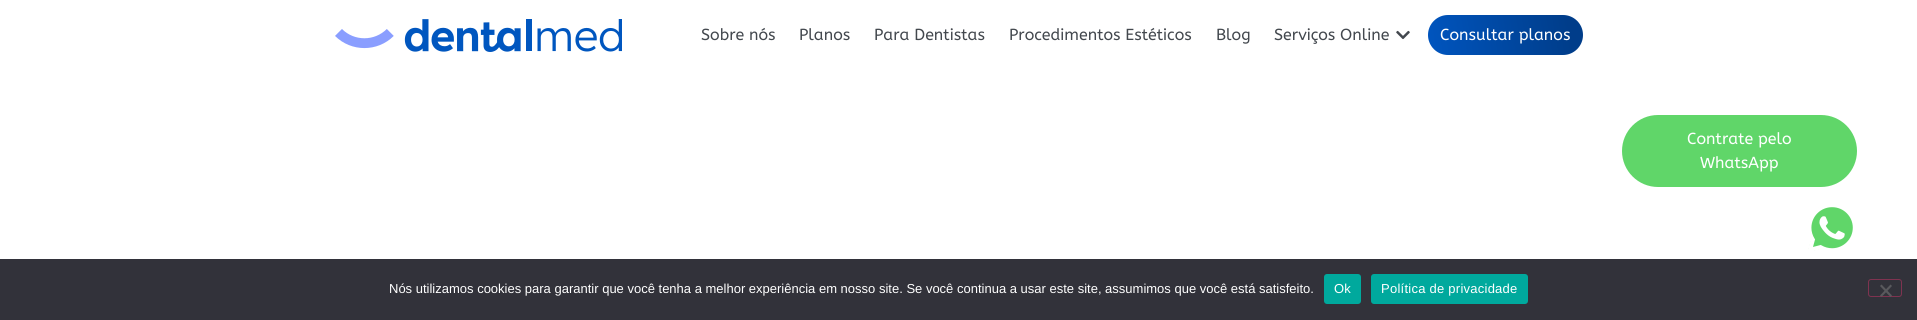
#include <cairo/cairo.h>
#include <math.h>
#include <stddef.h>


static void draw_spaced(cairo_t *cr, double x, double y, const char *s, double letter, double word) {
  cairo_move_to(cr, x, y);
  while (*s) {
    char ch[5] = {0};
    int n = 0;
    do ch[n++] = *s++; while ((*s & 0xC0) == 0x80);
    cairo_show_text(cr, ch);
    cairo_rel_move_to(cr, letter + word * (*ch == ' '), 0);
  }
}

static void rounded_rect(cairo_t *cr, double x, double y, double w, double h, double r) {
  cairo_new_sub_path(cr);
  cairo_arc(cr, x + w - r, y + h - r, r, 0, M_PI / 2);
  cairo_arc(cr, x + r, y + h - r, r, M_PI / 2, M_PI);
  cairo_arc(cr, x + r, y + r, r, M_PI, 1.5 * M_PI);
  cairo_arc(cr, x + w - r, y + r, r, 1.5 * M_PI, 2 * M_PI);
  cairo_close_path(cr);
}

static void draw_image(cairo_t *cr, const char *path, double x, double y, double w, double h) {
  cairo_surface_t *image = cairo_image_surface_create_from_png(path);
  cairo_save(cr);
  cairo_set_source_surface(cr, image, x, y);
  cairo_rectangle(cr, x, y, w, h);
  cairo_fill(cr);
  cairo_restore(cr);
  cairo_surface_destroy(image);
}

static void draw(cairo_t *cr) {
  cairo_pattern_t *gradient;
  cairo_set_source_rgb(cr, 1, 1, 1);
  cairo_paint(cr);
  draw_image(cr, "images/1.png", 335, 19, 287, 33);
  draw_image(cr, "images/2.png", 1396, 30, 14, 10);
  gradient = cairo_pattern_create_linear(1584, 21, 1427, 49);
  cairo_pattern_add_color_stop_rgba(gradient, 0.1, 0, 61 / 255.0, 138 / 255.0, 1);
  cairo_pattern_add_color_stop_rgba(gradient, 1, 0, 85 / 255.0, 191 / 255.0, 1);
  cairo_set_source(cr, gradient);
  cairo_pattern_destroy(gradient);
  rounded_rect(cr, 1428, 15, 155, 40, 20);
  cairo_fill(cr);
  cairo_set_source_rgb(cr, 96 / 255.0, 214 / 255.0, 105 / 255.0);
  rounded_rect(cr, 1622, 115, 235, 72, 36);
  cairo_fill(cr);
  draw_image(cr, "images/3.png", 1808, 207, 45, 44);
  cairo_set_source_rgb(cr, 50 / 255.0, 50 / 255.0, 58 / 255.0);
  cairo_rectangle(cr, 0, 259, 1917, 61);
  cairo_fill(cr);
  cairo_set_source_rgb(cr, 0, 169 / 255.0, 157 / 255.0);
  rounded_rect(cr, 1324, 274, 37, 30, 3);
  cairo_fill(cr);
  rounded_rect(cr, 1371, 274, 157, 30, 3);
  cairo_fill(cr);
  rounded_rect(cr, 1868.5, 279.5, 33, 17, 2.5);
  cairo_set_source_rgb(cr, 127 / 255.0, 51 / 255.0, 80 / 255.0);
  cairo_set_line_width(cr, 1);
  cairo_stroke(cr);
  cairo_set_source_rgb(cr, 89 / 255.0, 89 / 255.0, 93 / 255.0);
  cairo_new_path(cr);
  cairo_move_to(cr, 1890.5, 284.5);
  cairo_line_to(cr, 1892, 286);
  cairo_line_to(cr, 1881.5, 297);
  cairo_line_to(cr, 1880, 295.5);
  cairo_close_path(cr);
  cairo_fill(cr);
  cairo_new_path(cr);
  cairo_move_to(cr, 1880, 286);
  cairo_line_to(cr, 1881.5, 284.5);
  cairo_line_to(cr, 1892, 295.5);
  cairo_line_to(cr, 1890.5, 297);
  cairo_close_path(cr);
  cairo_fill(cr);
  cairo_select_font_face(cr, "ABeeZee", CAIRO_FONT_SLANT_NORMAL, CAIRO_FONT_WEIGHT_NORMAL);
  cairo_set_font_size(cr, 16);
  cairo_set_source_rgb(cr, 67 / 255.0, 72 / 255.0, 78 / 255.0);
  cairo_move_to(cr, 701, 40);
  cairo_show_text(cr, "Sobre nós");
  cairo_move_to(cr, 799, 40);
  cairo_show_text(cr, "Planos");
  cairo_move_to(cr, 874, 40);
  cairo_show_text(cr, "Para Dentistas");
  cairo_move_to(cr, 1009, 40);
  cairo_show_text(cr, "Procedimentos Estéticos");
  cairo_move_to(cr, 1216, 40);
  cairo_show_text(cr, "Blog");
  cairo_move_to(cr, 1274, 40);
  cairo_show_text(cr, "Serviços Online");
  cairo_set_source_rgb(cr, 1, 1, 1);
  cairo_move_to(cr, 1440, 40);
  cairo_show_text(cr, "Consultar planos");
  cairo_move_to(cr, 1687, 144);
  cairo_show_text(cr, "Contrate pelo");
  cairo_move_to(cr, 1700, 168);
  cairo_show_text(cr, "WhatsApp");
  cairo_select_font_face(cr, "Liberation Sans", CAIRO_FONT_SLANT_NORMAL, CAIRO_FONT_WEIGHT_NORMAL);
  cairo_set_font_size(cr, 13);
  cairo_move_to(cr, 389, 293);
  cairo_show_text(cr, "Nós utilizamos cookies para garantir que você tenha a melhor experiência em nosso site. Se você continua a usar este site, assumimos que você está satisfeito.");
  draw_spaced(cr, 1334, 293, "Ok", 0.25, 0);
  draw_spaced(cr, 1381, 293, "Política de privacidade", 0.25, 0);
}

int main(void) {
  cairo_surface_t *surface = cairo_image_surface_create(CAIRO_FORMAT_RGB24, 1917, 320);
  cairo_t *cr = cairo_create(surface);
  cairo_font_options_t *options = cairo_font_options_create();
  cairo_font_options_set_hint_metrics(options, CAIRO_HINT_METRICS_OFF);
  cairo_font_options_set_hint_style(options, CAIRO_HINT_STYLE_NONE);
  cairo_set_font_options(cr, options);
  cairo_set_miter_limit(cr, 4);
  draw(cr);
  cairo_surface_write_to_png(surface, "out.png");
  cairo_font_options_destroy(options);
  cairo_destroy(cr);
  cairo_surface_destroy(surface);
  return 0;
}
